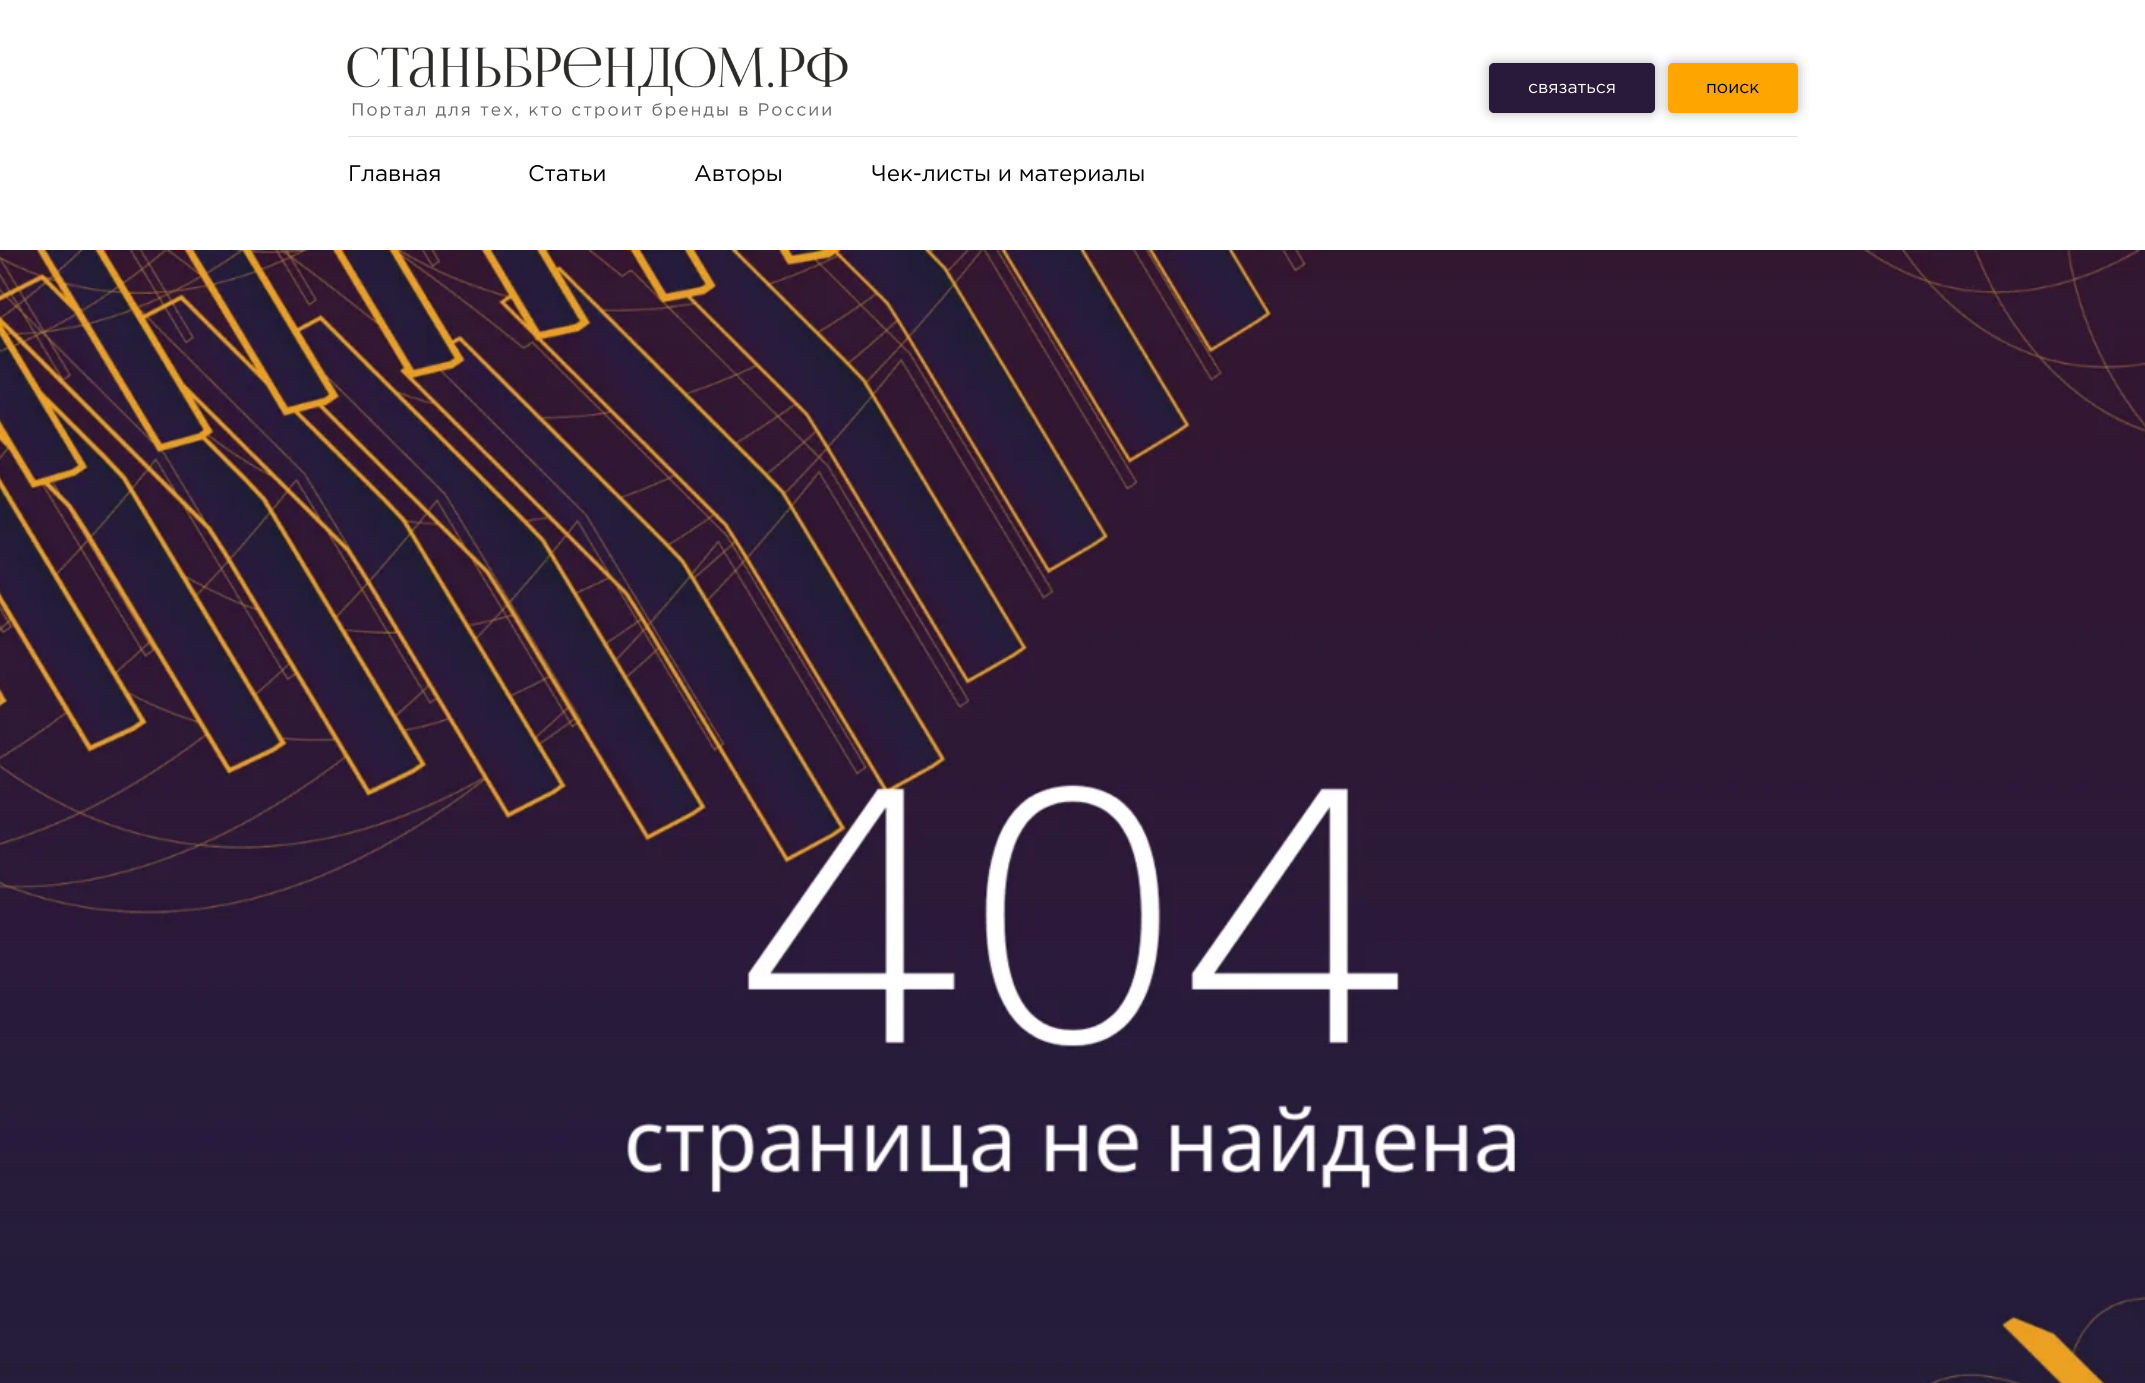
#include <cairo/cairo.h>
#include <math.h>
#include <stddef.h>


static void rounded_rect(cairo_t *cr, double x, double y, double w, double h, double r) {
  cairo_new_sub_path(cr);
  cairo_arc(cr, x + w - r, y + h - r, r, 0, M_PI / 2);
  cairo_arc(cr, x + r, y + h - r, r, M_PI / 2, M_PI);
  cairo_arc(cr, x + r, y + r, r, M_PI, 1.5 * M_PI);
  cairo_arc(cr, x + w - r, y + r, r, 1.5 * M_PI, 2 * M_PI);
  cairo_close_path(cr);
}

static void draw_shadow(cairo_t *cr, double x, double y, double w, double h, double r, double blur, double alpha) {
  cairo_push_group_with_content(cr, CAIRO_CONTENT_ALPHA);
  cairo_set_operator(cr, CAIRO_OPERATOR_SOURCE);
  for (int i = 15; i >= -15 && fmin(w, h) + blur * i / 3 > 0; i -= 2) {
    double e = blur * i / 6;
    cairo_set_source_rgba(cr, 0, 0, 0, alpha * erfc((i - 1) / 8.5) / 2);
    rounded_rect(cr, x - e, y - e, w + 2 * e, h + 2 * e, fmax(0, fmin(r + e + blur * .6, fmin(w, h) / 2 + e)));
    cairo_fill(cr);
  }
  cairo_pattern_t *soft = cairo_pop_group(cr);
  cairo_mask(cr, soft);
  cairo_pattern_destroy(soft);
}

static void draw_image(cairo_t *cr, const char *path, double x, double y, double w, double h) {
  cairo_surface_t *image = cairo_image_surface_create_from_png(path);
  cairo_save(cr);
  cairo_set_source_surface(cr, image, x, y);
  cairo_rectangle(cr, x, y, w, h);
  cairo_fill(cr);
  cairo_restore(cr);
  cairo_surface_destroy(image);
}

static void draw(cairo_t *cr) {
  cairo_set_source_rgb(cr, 1, 1, 1);
  cairo_paint(cr);
  draw_image(cr, "images/1.png", 347, 46, 501, 73);
  cairo_set_source_rgb(cr, 0, 0, 0);
  draw_shadow(cr, 1489, 63, 166, 50, 5, 6, 0.3);
  cairo_set_source_rgb(cr, 41 / 255.0, 26 / 255.0, 60 / 255.0);
  rounded_rect(cr, 1489.5, 63.5, 165, 49, 4.5);
  cairo_fill_preserve(cr);
  cairo_set_line_width(cr, 1);
  cairo_stroke(cr);
  cairo_set_source_rgb(cr, 0, 0, 0);
  draw_shadow(cr, 1668, 63, 130, 50, 5, 6, 0.3);
  cairo_set_source_rgb(cr, 1, 165 / 255.0, 0);
  rounded_rect(cr, 1668.5, 63.5, 129, 49, 4.5);
  cairo_fill_preserve(cr);
  cairo_stroke(cr);
  cairo_set_source_rgb(cr, 226 / 255.0, 226 / 255.0, 226 / 255.0);
  cairo_rectangle(cr, 348, 136, 1450, 1);
  cairo_fill(cr);
  draw_image(cr, "images/2.png", 0, 250, 2145, 1133);
  cairo_select_font_face(cr, "Gotham", CAIRO_FONT_SLANT_NORMAL, CAIRO_FONT_WEIGHT_NORMAL);
  cairo_set_font_size(cr, 17.5);
  cairo_set_source_rgb(cr, 1, 1, 1);
  cairo_move_to(cr, 1528, 93);
  cairo_show_text(cr, "связаться");
  cairo_set_source_rgb(cr, 0, 0, 0);
  cairo_move_to(cr, 1706, 93);
  cairo_show_text(cr, "поиск");
  cairo_set_font_size(cr, 22.5);
  cairo_move_to(cr, 348, 181);
  cairo_show_text(cr, "Главная");
  cairo_move_to(cr, 528, 181);
  cairo_show_text(cr, "Статьи");
  cairo_move_to(cr, 694, 181);
  cairo_show_text(cr, "Авторы");
  cairo_move_to(cr, 871, 181);
  cairo_show_text(cr, "Чек-листы и материалы");
}

int main(void) {
  cairo_surface_t *surface = cairo_image_surface_create(CAIRO_FORMAT_RGB24, 2145, 1383);
  cairo_t *cr = cairo_create(surface);
  cairo_font_options_t *options = cairo_font_options_create();
  cairo_font_options_set_hint_metrics(options, CAIRO_HINT_METRICS_OFF);
  cairo_font_options_set_hint_style(options, CAIRO_HINT_STYLE_NONE);
  cairo_set_font_options(cr, options);
  cairo_set_miter_limit(cr, 4);
  draw(cr);
  cairo_surface_write_to_png(surface, "out.png");
  cairo_font_options_destroy(options);
  cairo_destroy(cr);
  cairo_surface_destroy(surface);
  return 0;
}
